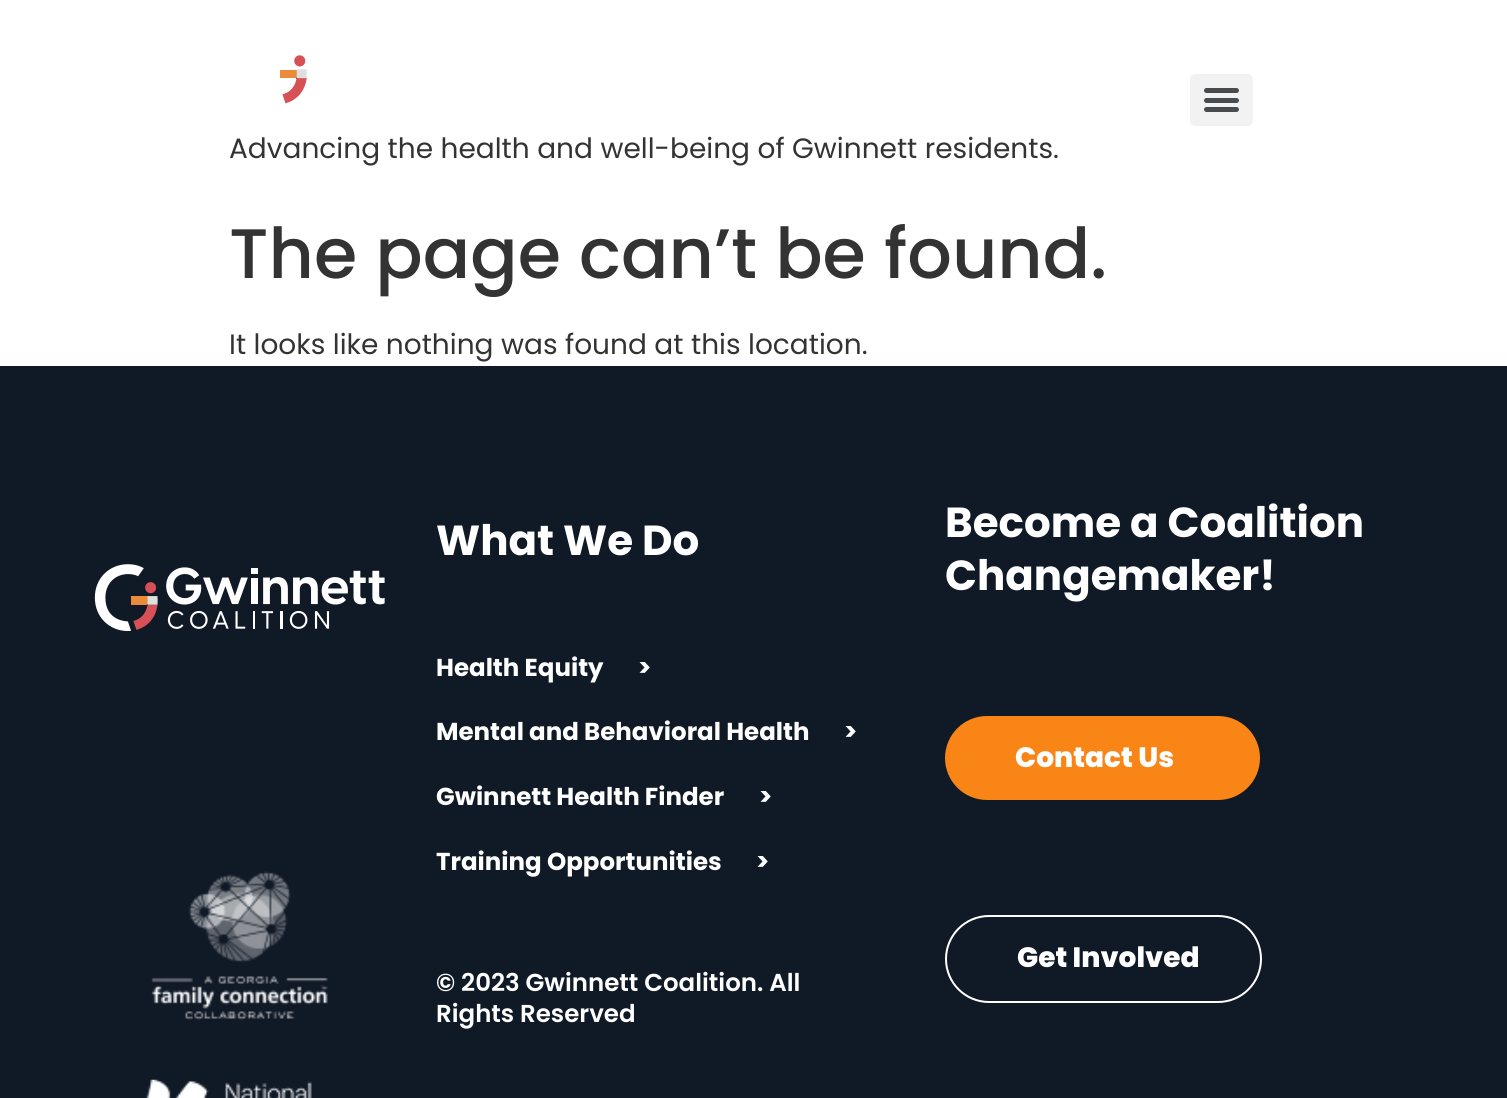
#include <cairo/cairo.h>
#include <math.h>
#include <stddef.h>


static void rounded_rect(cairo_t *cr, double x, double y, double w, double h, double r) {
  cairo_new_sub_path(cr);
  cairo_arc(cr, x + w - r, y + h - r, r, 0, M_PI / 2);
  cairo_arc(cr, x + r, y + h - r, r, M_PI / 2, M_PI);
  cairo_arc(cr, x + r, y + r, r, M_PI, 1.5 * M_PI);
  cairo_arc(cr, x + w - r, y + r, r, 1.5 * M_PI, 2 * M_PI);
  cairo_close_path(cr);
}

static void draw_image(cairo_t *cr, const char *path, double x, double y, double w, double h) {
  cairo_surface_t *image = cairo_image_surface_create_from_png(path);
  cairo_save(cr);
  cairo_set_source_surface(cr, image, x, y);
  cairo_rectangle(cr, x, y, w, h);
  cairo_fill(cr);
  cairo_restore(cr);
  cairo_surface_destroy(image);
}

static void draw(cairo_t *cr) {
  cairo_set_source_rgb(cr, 1, 1, 1);
  cairo_paint(cr);
  cairo_set_source_rgb(cr, 242 / 255.0, 242 / 255.0, 242 / 255.0);
  rounded_rect(cr, 1190, 74, 63, 52, 5);
  cairo_fill(cr);
  cairo_set_source_rgb(cr, 73 / 255.0, 76 / 255.0, 79 / 255.0);
  rounded_rect(cr, 1204, 98, 35, 5, 2.5);
  cairo_fill(cr);
  rounded_rect(cr, 1204, 88, 35, 5, 2.5);
  cairo_fill(cr);
  rounded_rect(cr, 1204, 107, 35, 5, 2.5);
  cairo_fill(cr);
  draw_image(cr, "images/1.png", 280, 55, 27, 49);
  cairo_set_source_rgb(cr, 16 / 255.0, 25 / 255.0, 38 / 255.0);
  cairo_rectangle(cr, 0, 366, 1507, 732);
  cairo_fill(cr);
  draw_image(cr, "images/2.png", 94, 564, 291, 67);
  draw_image(cr, "images/3.png", 151, 871, 177, 150);
  draw_image(cr, "images/4.png", 146, 1079, 166, 19);
  cairo_set_source_rgb(cr, 250 / 255.0, 133 / 255.0, 23 / 255.0);
  rounded_rect(cr, 945, 716, 315, 84, 42);
  cairo_fill(cr);
  rounded_rect(cr, 946, 916, 315, 86, 43);
  cairo_set_source_rgb(cr, 1, 1, 1);
  cairo_stroke(cr);
  cairo_select_font_face(cr, "Poppins", CAIRO_FONT_SLANT_NORMAL, CAIRO_FONT_WEIGHT_NORMAL);
  cairo_set_font_size(cr, 28);
  cairo_set_source_rgb(cr, 51 / 255.0, 51 / 255.0, 51 / 255.0);
  cairo_move_to(cr, 229, 158);
  cairo_show_text(cr, "Advancing the health and well-being of Gwinnett residents.");
  cairo_select_font_face(cr, "Poppins Medium", CAIRO_FONT_SLANT_NORMAL, CAIRO_FONT_WEIGHT_NORMAL);
  cairo_set_font_size(cr, 70);
  cairo_move_to(cr, 229, 278);
  cairo_show_text(cr, "The page can’t be found.");
  cairo_select_font_face(cr, "Poppins", CAIRO_FONT_SLANT_NORMAL, CAIRO_FONT_WEIGHT_NORMAL);
  cairo_set_font_size(cr, 28);
  cairo_move_to(cr, 229, 354);
  cairo_show_text(cr, "It looks like nothing was found at this location.");
  cairo_select_font_face(cr, "Poppins", CAIRO_FONT_SLANT_NORMAL, CAIRO_FONT_WEIGHT_BOLD);
  cairo_set_font_size(cr, 42);
  cairo_set_source_rgb(cr, 1, 1, 1);
  cairo_move_to(cr, 436, 555);
  cairo_show_text(cr, "What We Do");
  cairo_set_font_size(cr, 24.5);
  cairo_move_to(cr, 436, 676);
  cairo_show_text(cr, "Health Equity");
  cairo_move_to(cr, 638, 676);
  cairo_show_text(cr, ">");
  cairo_move_to(cr, 436, 740);
  cairo_show_text(cr, "Mental and Behavioral Health");
  cairo_move_to(cr, 844, 740);
  cairo_show_text(cr, ">");
  cairo_move_to(cr, 436, 805);
  cairo_show_text(cr, "Gwinnett Health Finder");
  cairo_move_to(cr, 759, 805);
  cairo_show_text(cr, ">");
  cairo_move_to(cr, 436, 870);
  cairo_show_text(cr, "Training Opportunities");
  cairo_move_to(cr, 756, 870);
  cairo_show_text(cr, ">");
  cairo_select_font_face(cr, "Poppins SemiBold", CAIRO_FONT_SLANT_NORMAL, CAIRO_FONT_WEIGHT_NORMAL);
  cairo_move_to(cr, 436, 991);
  cairo_show_text(cr, "© 2023 Gwinnett Coalition. All");
  cairo_move_to(cr, 436, 1022);
  cairo_show_text(cr, "Rights Reserved");
  cairo_select_font_face(cr, "Poppins", CAIRO_FONT_SLANT_NORMAL, CAIRO_FONT_WEIGHT_BOLD);
  cairo_set_font_size(cr, 42);
  cairo_move_to(cr, 945, 537);
  cairo_show_text(cr, "Become a Coalition");
  cairo_move_to(cr, 945, 590);
  cairo_show_text(cr, "Changemaker!");
  cairo_select_font_face(cr, "Poppins ExtraBold", CAIRO_FONT_SLANT_NORMAL, CAIRO_FONT_WEIGHT_NORMAL);
  cairo_set_font_size(cr, 28);
  cairo_move_to(cr, 1015, 767);
  cairo_show_text(cr, "Contact Us");
  cairo_move_to(cr, 1017, 967);
  cairo_show_text(cr, "Get Involved");
}

int main(void) {
  cairo_surface_t *surface = cairo_image_surface_create(CAIRO_FORMAT_RGB24, 1507, 1098);
  cairo_t *cr = cairo_create(surface);
  cairo_font_options_t *options = cairo_font_options_create();
  cairo_font_options_set_hint_metrics(options, CAIRO_HINT_METRICS_OFF);
  cairo_font_options_set_hint_style(options, CAIRO_HINT_STYLE_NONE);
  cairo_set_font_options(cr, options);
  cairo_set_miter_limit(cr, 4);
  draw(cr);
  cairo_surface_write_to_png(surface, "out.png");
  cairo_font_options_destroy(options);
  cairo_destroy(cr);
  cairo_surface_destroy(surface);
  return 0;
}
